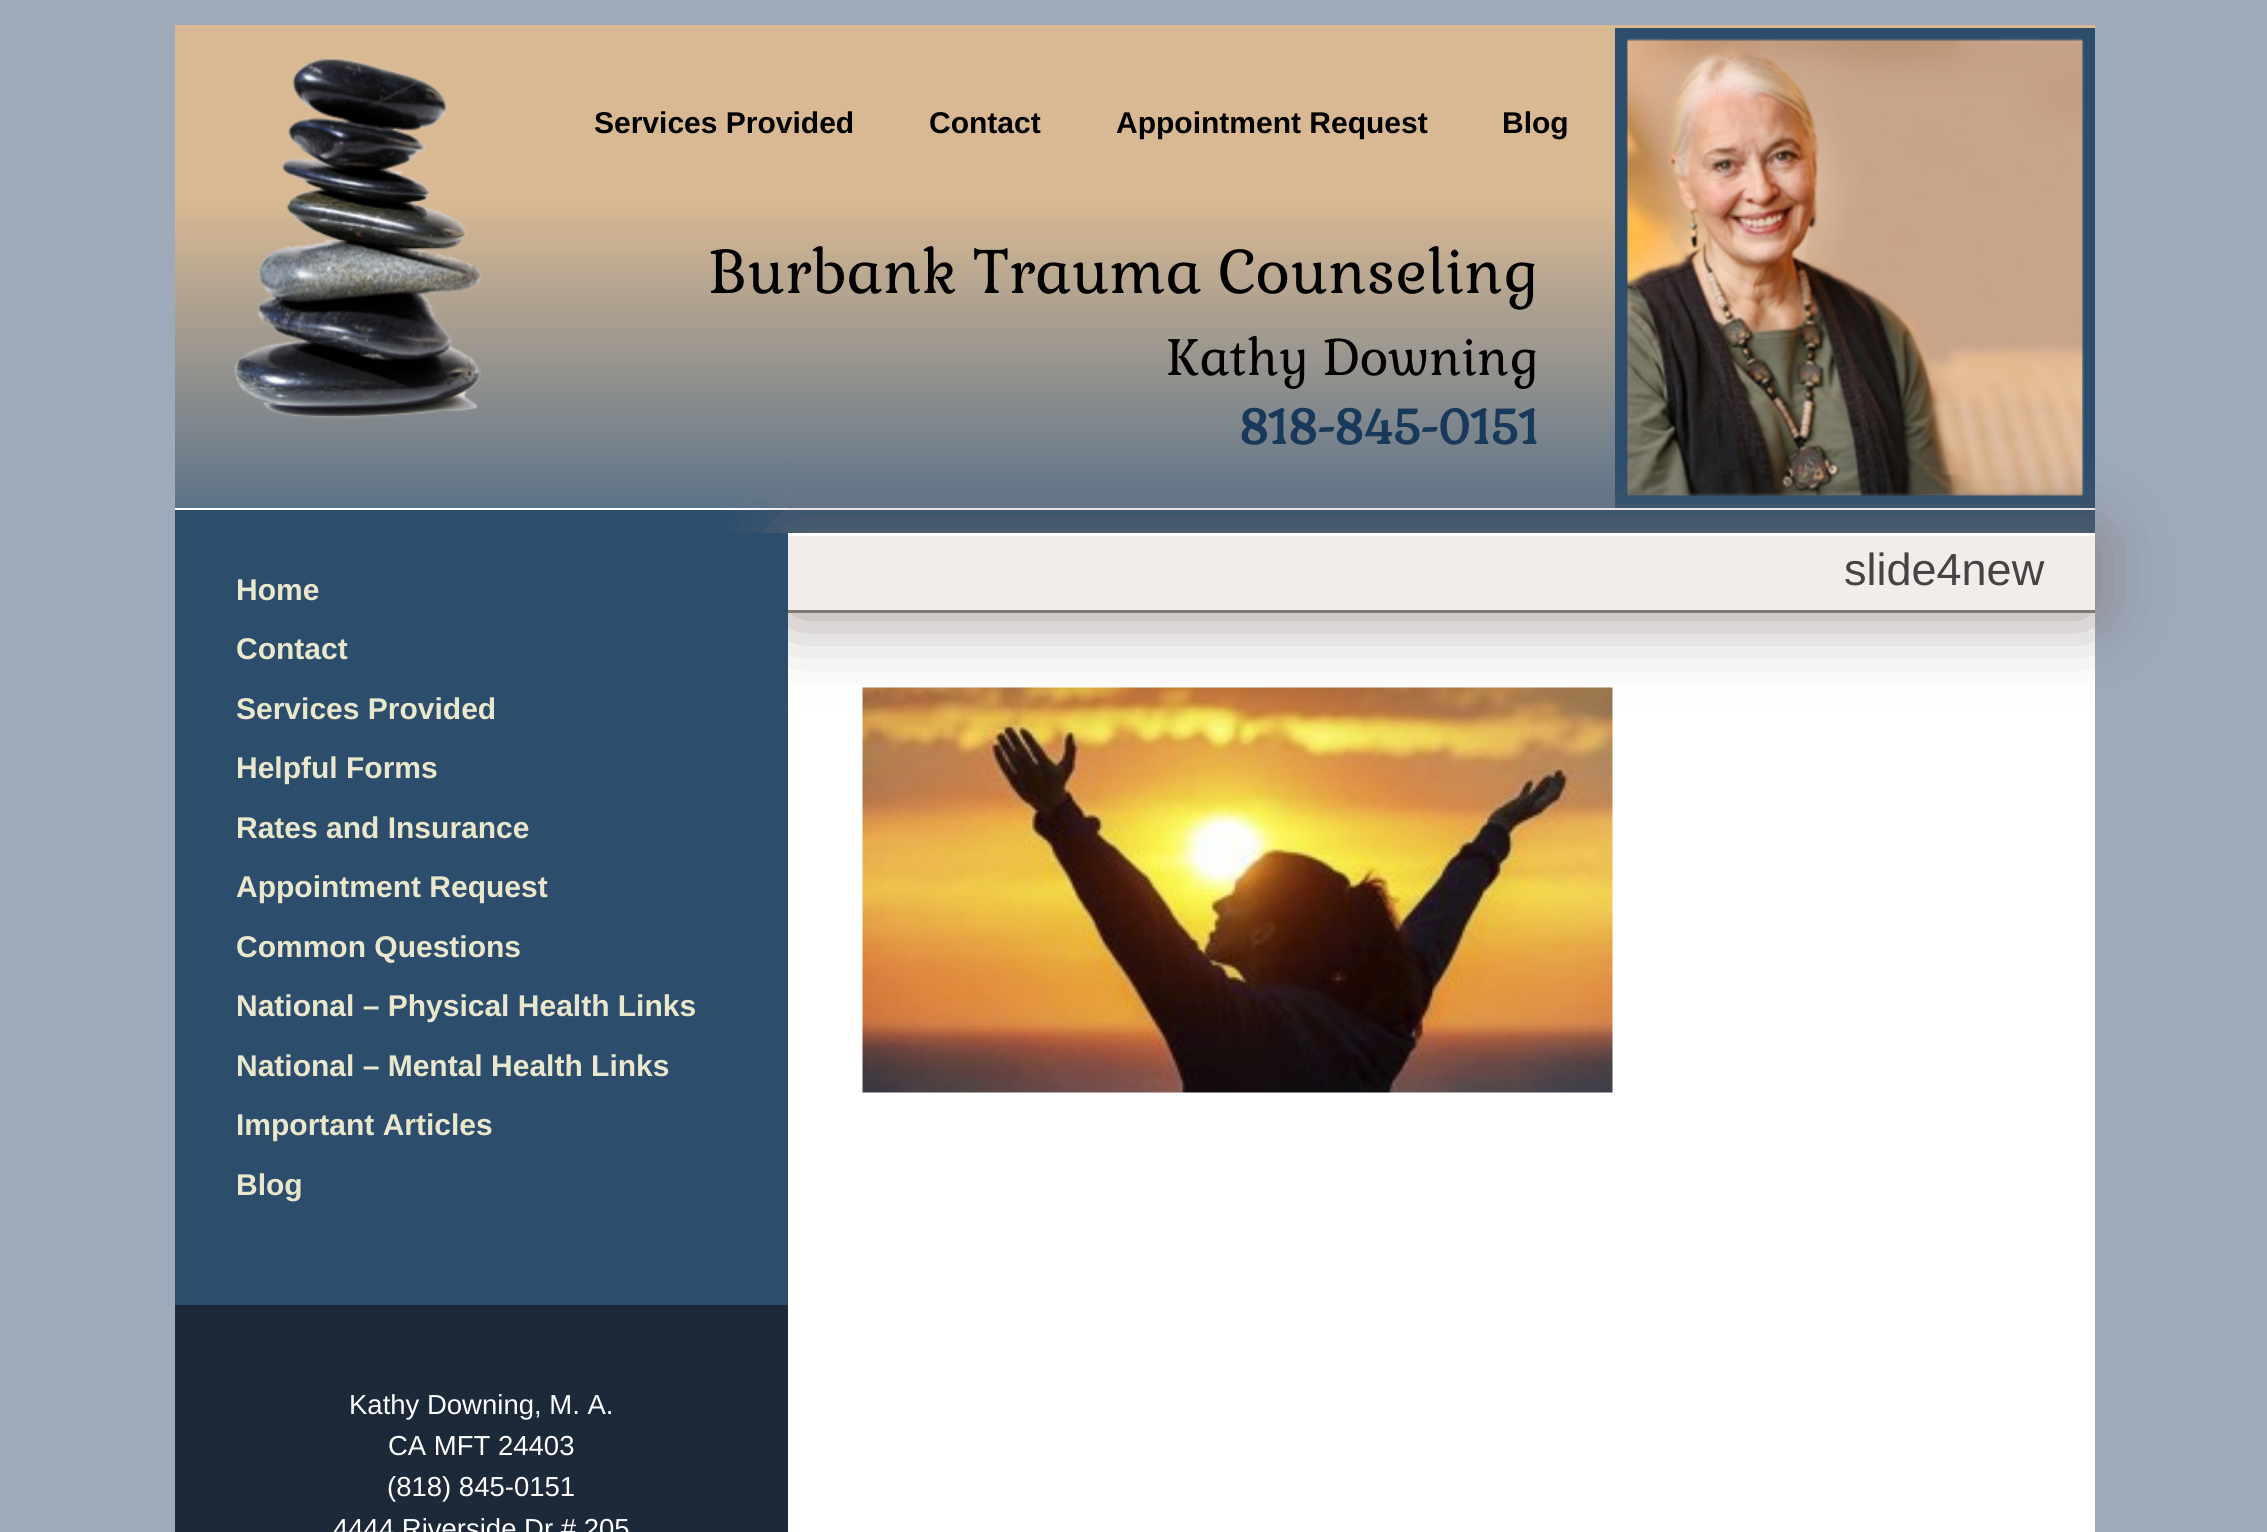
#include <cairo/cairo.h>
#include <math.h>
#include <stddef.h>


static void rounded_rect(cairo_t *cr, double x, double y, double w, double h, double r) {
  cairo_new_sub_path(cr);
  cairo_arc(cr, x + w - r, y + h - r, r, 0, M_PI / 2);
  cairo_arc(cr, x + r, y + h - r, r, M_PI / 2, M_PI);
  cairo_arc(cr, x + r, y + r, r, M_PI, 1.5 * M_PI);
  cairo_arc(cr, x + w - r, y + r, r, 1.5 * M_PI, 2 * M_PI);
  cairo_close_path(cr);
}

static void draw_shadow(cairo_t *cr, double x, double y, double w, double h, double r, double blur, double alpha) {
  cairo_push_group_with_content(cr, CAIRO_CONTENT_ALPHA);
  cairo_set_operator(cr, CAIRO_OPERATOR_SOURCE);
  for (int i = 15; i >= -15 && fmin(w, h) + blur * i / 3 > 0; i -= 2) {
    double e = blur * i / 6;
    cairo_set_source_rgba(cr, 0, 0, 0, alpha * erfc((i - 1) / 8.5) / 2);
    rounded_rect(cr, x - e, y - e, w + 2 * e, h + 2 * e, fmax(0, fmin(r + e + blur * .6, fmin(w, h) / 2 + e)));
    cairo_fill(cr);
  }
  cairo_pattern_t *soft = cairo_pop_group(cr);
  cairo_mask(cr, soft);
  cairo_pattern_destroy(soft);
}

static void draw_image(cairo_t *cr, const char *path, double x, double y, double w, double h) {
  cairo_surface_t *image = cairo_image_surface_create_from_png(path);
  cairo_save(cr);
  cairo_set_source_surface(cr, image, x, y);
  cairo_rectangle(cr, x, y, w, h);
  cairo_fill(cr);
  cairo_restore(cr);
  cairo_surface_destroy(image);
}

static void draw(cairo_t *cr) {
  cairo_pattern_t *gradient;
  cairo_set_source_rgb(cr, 158 / 255.0, 169 / 255.0, 186 / 255.0);
  cairo_paint(cr);
  cairo_set_source_rgb(cr, 217 / 255.0, 185 / 255.0, 147 / 255.0);
  cairo_rectangle(cr, 175, 25, 1920, 175);
  cairo_fill(cr);
  gradient = cairo_pattern_create_linear(1135, 200, 1135, 508);
  cairo_pattern_add_color_stop_rgba(gradient, 0, 217 / 255.0, 185 / 255.0, 147 / 255.0, 1);
  cairo_pattern_add_color_stop_rgba(gradient, 1, 93 / 255.0, 115 / 255.0, 137 / 255.0, 1);
  cairo_set_source(cr, gradient);
  cairo_pattern_destroy(gradient);
  cairo_rectangle(cr, 175, 200, 1907, 308);
  cairo_fill(cr);
  cairo_set_source_rgb(cr, 1, 1, 1);
  cairo_rectangle(cr, 175, 508, 1920, 2);
  cairo_fill(cr);
  draw_image(cr, "images/1.png", 234, 58, 248, 360);
  cairo_rectangle(cr, 1621.5, 34.5, 467, 467);
  cairo_set_source_rgb(cr, 45 / 255.0, 77 / 255.0, 109 / 255.0);
  cairo_set_line_width(cr, 13);
  cairo_stroke(cr);
  draw_image(cr, "images/2.png", 1626, 38, 458, 458);
  cairo_rectangle(cr, 175, 510, 1920, 23);
  cairo_fill(cr);
  cairo_set_source_rgb(cr, 1, 1, 1);
  cairo_rectangle(cr, 788, 613, 1307, 919);
  cairo_fill(cr);
  cairo_set_source_rgb(cr, 128 / 255.0, 120 / 255.0, 114 / 255.0);
  draw_shadow(cr, 788, 535, 1307, 80, 0, 37.5, 0.8);
  cairo_set_source_rgb(cr, 242 / 255.0, 237 / 255.0, 234 / 255.0);
  cairo_rectangle(cr, 788, 536, 1307, 74);
  cairo_fill(cr);
  cairo_set_source_rgb(cr, 1, 1, 1);
  cairo_rectangle(cr, 788, 533, 1307, 3);
  cairo_fill(cr);
  cairo_set_source_rgb(cr, 128 / 255.0, 120 / 255.0, 114 / 255.0);
  cairo_rectangle(cr, 788, 610, 1307, 3);
  cairo_fill(cr);
  draw_image(cr, "images/3.png", 862, 687, 751, 406);
  cairo_set_source_rgb(cr, 45 / 255.0, 77 / 255.0, 109 / 255.0);
  cairo_rectangle(cr, 175, 533, 613, 772);
  cairo_fill(cr);
  cairo_set_source_rgb(cr, 27 / 255.0, 41 / 255.0, 57 / 255.0);
  cairo_rectangle(cr, 175, 1305, 613, 227);
  cairo_fill(cr);
  cairo_select_font_face(cr, "Liberation Sans", CAIRO_FONT_SLANT_NORMAL, CAIRO_FONT_WEIGHT_BOLD);
  cairo_set_font_size(cr, 30);
  cairo_set_source_rgb(cr, 0, 0, 0);
  cairo_move_to(cr, 594, 133);
  cairo_show_text(cr, "Services Provided");
  cairo_move_to(cr, 929, 133);
  cairo_show_text(cr, "Contact");
  cairo_move_to(cr, 1116, 133);
  cairo_show_text(cr, "Appointment Request");
  cairo_move_to(cr, 1502, 133);
  cairo_show_text(cr, "Blog");
  cairo_select_font_face(cr, "Gabriela", CAIRO_FONT_SLANT_NORMAL, CAIRO_FONT_WEIGHT_NORMAL);
  cairo_set_font_size(cr, 60);
  cairo_move_to(cr, 708, 293);
  cairo_show_text(cr, "Burbank Trauma Counseling");
  cairo_set_font_size(cr, 50);
  cairo_move_to(cr, 1166, 375);
  cairo_show_text(cr, "Kathy Downing");
  cairo_select_font_face(cr, "Gabriela", CAIRO_FONT_SLANT_NORMAL, CAIRO_FONT_WEIGHT_BOLD);
  cairo_set_font_size(cr, 47.5);
  cairo_set_source_rgb(cr, 24 / 255.0, 57 / 255.0, 90 / 255.0);
  cairo_move_to(cr, 1239, 444);
  cairo_show_text(cr, "818-845-0151");
  cairo_select_font_face(cr, "Liberation Sans", CAIRO_FONT_SLANT_NORMAL, CAIRO_FONT_WEIGHT_NORMAL);
  cairo_set_font_size(cr, 45);
  cairo_set_source_rgb(cr, 68 / 255.0, 68 / 255.0, 68 / 255.0);
  cairo_move_to(cr, 1844, 585);
  cairo_show_text(cr, "slide4new");
  cairo_select_font_face(cr, "Liberation Sans", CAIRO_FONT_SLANT_NORMAL, CAIRO_FONT_WEIGHT_BOLD);
  cairo_set_font_size(cr, 30);
  cairo_set_source_rgb(cr, 234 / 255.0, 232 / 255.0, 204 / 255.0);
  cairo_move_to(cr, 236, 600);
  cairo_show_text(cr, "Home");
  cairo_move_to(cr, 236, 659);
  cairo_show_text(cr, "Contact");
  cairo_move_to(cr, 236, 719);
  cairo_show_text(cr, "Services Provided");
  cairo_move_to(cr, 236, 778);
  cairo_show_text(cr, "Helpful Forms");
  cairo_move_to(cr, 236, 838);
  cairo_show_text(cr, "Rates and Insurance");
  cairo_move_to(cr, 236, 897);
  cairo_show_text(cr, "Appointment Request");
  cairo_move_to(cr, 236, 957);
  cairo_show_text(cr, "Common Questions");
  cairo_move_to(cr, 236, 1016);
  cairo_show_text(cr, "National – Physical Health Links");
  cairo_move_to(cr, 236, 1076);
  cairo_show_text(cr, "National – Mental Health Links");
  cairo_move_to(cr, 236, 1135);
  cairo_show_text(cr, "Important Articles");
  cairo_move_to(cr, 236, 1195);
  cairo_show_text(cr, "Blog");
  cairo_select_font_face(cr, "Liberation Sans", CAIRO_FONT_SLANT_NORMAL, CAIRO_FONT_WEIGHT_NORMAL);
  cairo_set_font_size(cr, 27.5);
  cairo_set_source_rgb(cr, 1, 1, 1);
  cairo_move_to(cr, 349, 1414);
  cairo_show_text(cr, "Kathy Downing, M. A.");
  cairo_move_to(cr, 388, 1455);
  cairo_show_text(cr, "CA MFT 24403");
  cairo_move_to(cr, 387, 1496);
  cairo_show_text(cr, "(818) 845-0151");
  cairo_move_to(cr, 333, 1538);
  cairo_show_text(cr, "4444 Riverside Dr # 205");
}

int main(void) {
  cairo_surface_t *surface = cairo_image_surface_create(CAIRO_FORMAT_RGB24, 2267, 1532);
  cairo_t *cr = cairo_create(surface);
  cairo_font_options_t *options = cairo_font_options_create();
  cairo_font_options_set_hint_metrics(options, CAIRO_HINT_METRICS_OFF);
  cairo_font_options_set_hint_style(options, CAIRO_HINT_STYLE_NONE);
  cairo_set_font_options(cr, options);
  cairo_set_miter_limit(cr, 4);
  draw(cr);
  cairo_surface_write_to_png(surface, "out.png");
  cairo_font_options_destroy(options);
  cairo_destroy(cr);
  cairo_surface_destroy(surface);
  return 0;
}
